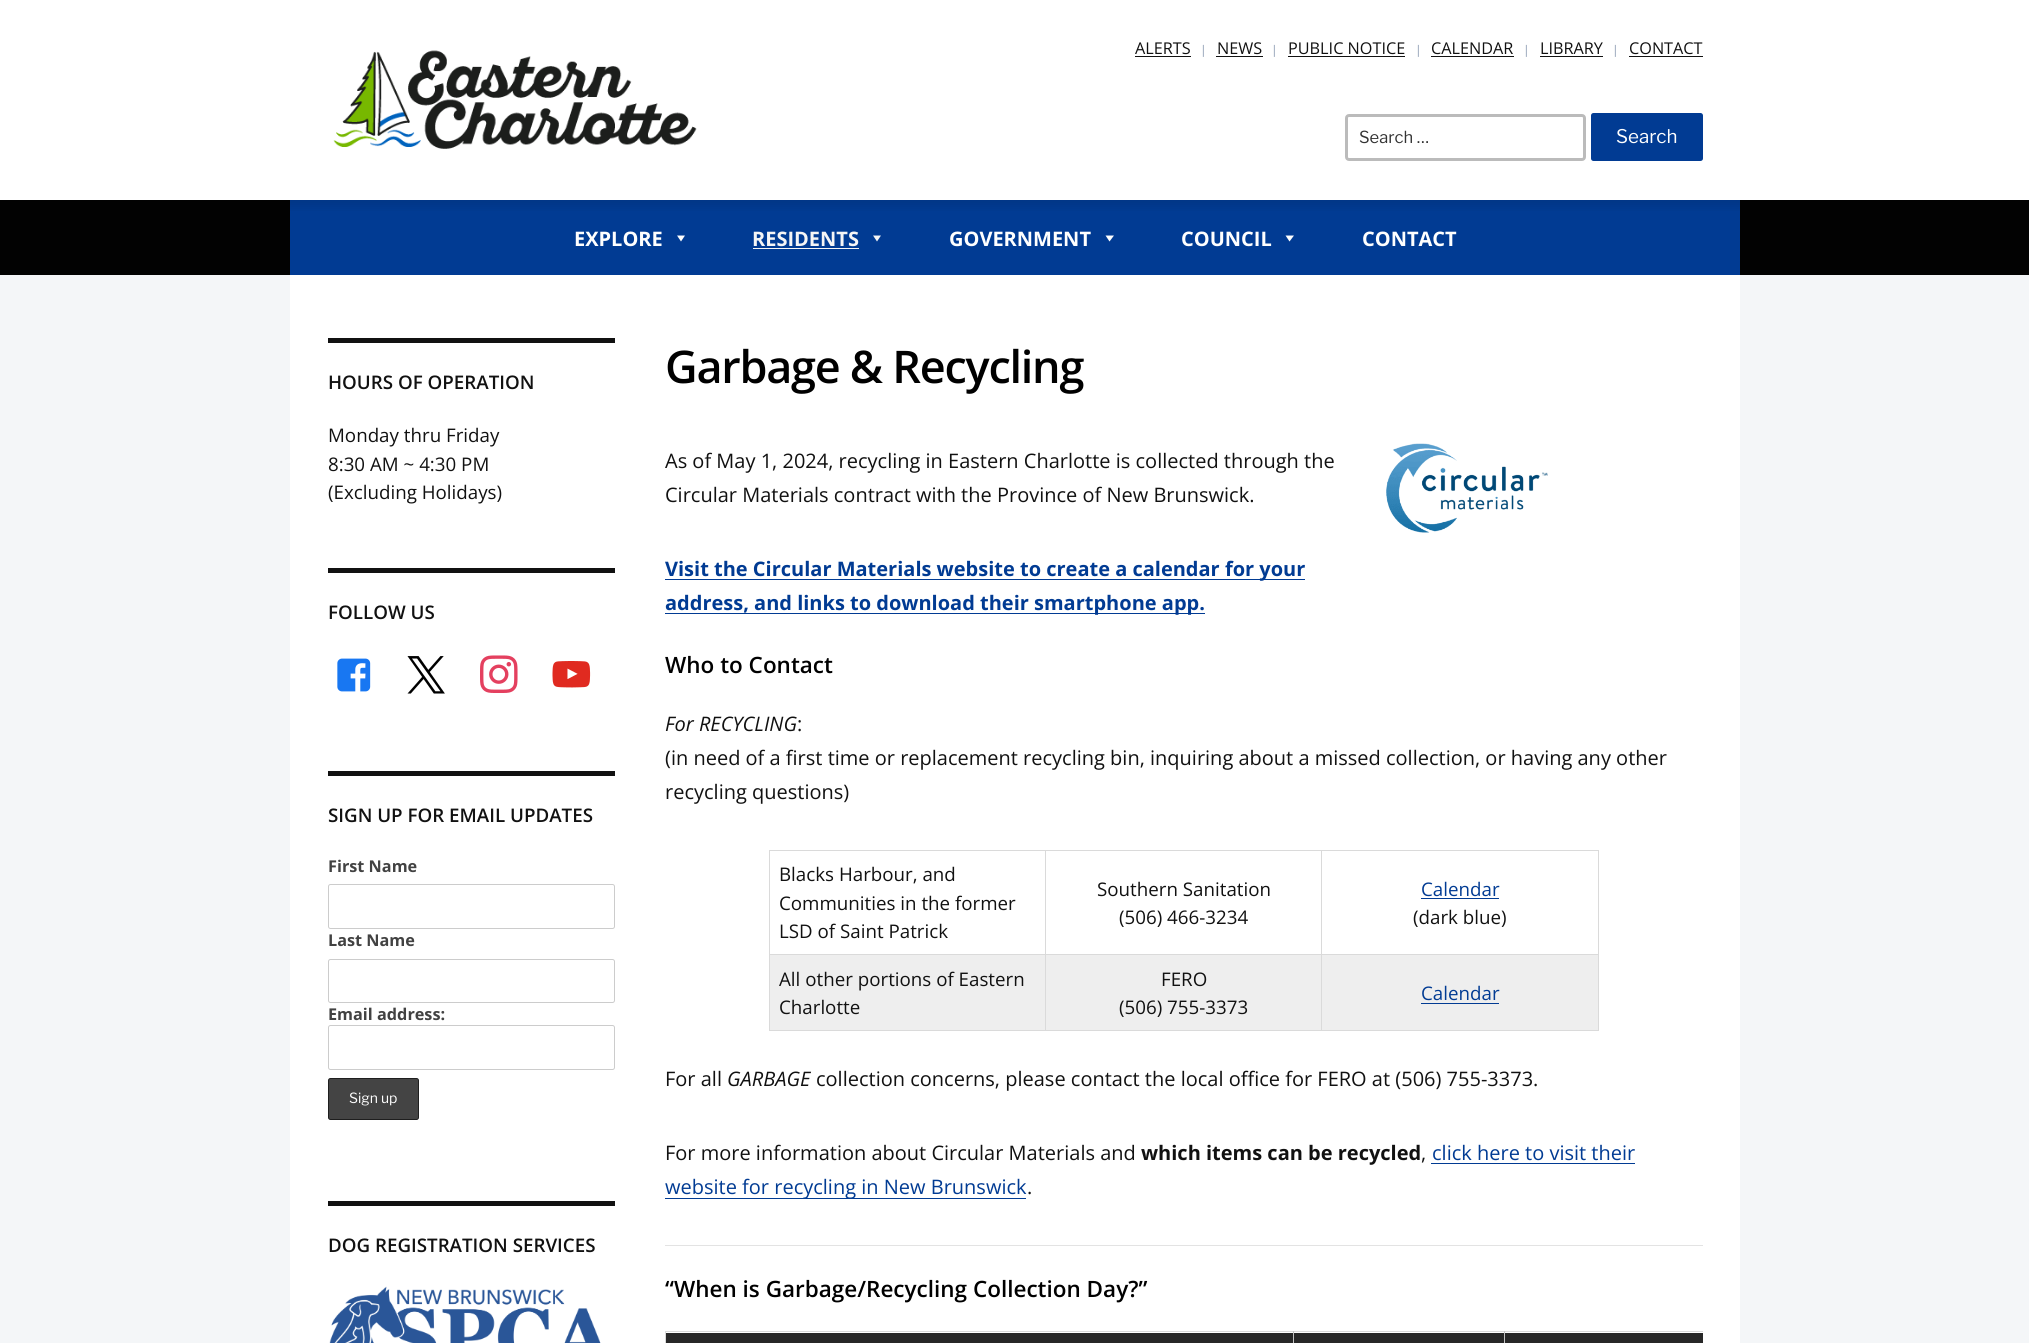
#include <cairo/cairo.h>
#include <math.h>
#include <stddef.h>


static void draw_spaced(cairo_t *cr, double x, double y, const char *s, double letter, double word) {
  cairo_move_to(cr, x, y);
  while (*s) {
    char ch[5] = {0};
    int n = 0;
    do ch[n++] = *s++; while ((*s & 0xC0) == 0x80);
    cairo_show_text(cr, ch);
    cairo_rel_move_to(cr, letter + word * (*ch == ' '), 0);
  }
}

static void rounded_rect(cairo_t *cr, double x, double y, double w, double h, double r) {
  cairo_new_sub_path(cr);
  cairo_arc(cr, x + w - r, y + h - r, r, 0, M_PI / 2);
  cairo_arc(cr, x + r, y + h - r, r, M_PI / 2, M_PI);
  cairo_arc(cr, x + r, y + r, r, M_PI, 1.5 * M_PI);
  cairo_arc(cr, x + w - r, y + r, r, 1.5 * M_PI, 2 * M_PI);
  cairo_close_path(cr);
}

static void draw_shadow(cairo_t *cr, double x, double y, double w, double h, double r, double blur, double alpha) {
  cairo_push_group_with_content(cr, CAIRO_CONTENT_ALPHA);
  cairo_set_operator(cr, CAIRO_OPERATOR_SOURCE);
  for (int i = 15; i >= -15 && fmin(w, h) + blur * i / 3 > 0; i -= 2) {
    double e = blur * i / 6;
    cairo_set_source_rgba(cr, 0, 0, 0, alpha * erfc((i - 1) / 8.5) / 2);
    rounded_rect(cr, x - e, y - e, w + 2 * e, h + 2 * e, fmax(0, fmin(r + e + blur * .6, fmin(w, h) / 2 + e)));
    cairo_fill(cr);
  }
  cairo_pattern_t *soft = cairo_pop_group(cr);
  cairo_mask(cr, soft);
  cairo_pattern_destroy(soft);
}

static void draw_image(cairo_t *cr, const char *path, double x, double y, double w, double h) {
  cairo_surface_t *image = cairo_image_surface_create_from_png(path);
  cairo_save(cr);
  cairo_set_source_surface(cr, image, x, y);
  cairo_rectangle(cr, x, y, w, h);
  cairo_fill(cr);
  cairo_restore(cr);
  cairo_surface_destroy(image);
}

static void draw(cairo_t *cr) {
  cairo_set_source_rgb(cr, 244 / 255.0, 246 / 255.0, 248 / 255.0);
  cairo_paint(cr);
  cairo_set_source_rgb(cr, 1, 1, 1);
  cairo_rectangle(cr, 0, 0, 2029, 200);
  cairo_fill(cr);
  cairo_set_source_rgb(cr, 2 / 255.0, 2 / 255.0, 2 / 255.0);
  cairo_rectangle(cr, 0, 200, 2029, 75);
  cairo_fill(cr);
  cairo_set_source_rgb(cr, 1 / 255.0, 59 / 255.0, 147 / 255.0);
  cairo_rectangle(cr, 290, 200, 1450, 75);
  cairo_fill(cr);
  cairo_save(cr);
  cairo_rectangle(cr, 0, 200, 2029, 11);
  cairo_clip(cr);
  cairo_set_source_rgb(cr, 0, 0, 0);
  draw_shadow(cr, 0, 6, 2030, 200, 0, 6, 0.1);
  cairo_restore(cr);
  draw_image(cr, "images/1.png", 333, 50, 364, 99);
  cairo_set_source_rgb(cr, 17 / 255.0, 17 / 255.0, 17 / 255.0);
  cairo_rectangle(cr, 1135, 56, 56, 1);
  cairo_fill(cr);
  cairo_rectangle(cr, 1216, 56, 47, 1);
  cairo_fill(cr);
  cairo_rectangle(cr, 1288, 56, 117, 1);
  cairo_fill(cr);
  cairo_rectangle(cr, 1431, 56, 83, 1);
  cairo_fill(cr);
  cairo_rectangle(cr, 1540, 56, 63, 1);
  cairo_fill(cr);
  cairo_rectangle(cr, 1629, 56, 74, 1);
  cairo_fill(cr);
  rounded_rect(cr, 1346.5, 115.5, 238, 44, 2.5);
  cairo_set_source_rgb(cr, 187 / 255.0, 187 / 255.0, 187 / 255.0);
  cairo_set_line_width(cr, 3);
  cairo_stroke(cr);
  cairo_set_source_rgb(cr, 1 / 255.0, 59 / 255.0, 147 / 255.0);
  rounded_rect(cr, 1591, 113, 112, 48, 2.5);
  cairo_fill(cr);
  cairo_set_source_rgb(cr, 1, 1, 1);
  cairo_new_path(cr);
  cairo_move_to(cr, 685, 235.5);
  cairo_line_to(cr, 681, 241.5);
  cairo_line_to(cr, 677, 235.5);
  cairo_close_path(cr);
  cairo_fill(cr);
  cairo_set_source_rgb(cr, 245 / 255.0, 245 / 255.0, 245 / 255.0);
  cairo_rectangle(cr, 753, 248, 106, 1);
  cairo_fill(cr);
  cairo_new_path(cr);
  cairo_move_to(cr, 881, 235.5);
  cairo_line_to(cr, 877, 241.5);
  cairo_line_to(cr, 873, 235.5);
  cairo_close_path(cr);
  cairo_fill(cr);
  cairo_set_source_rgb(cr, 1, 1, 1);
  cairo_new_path(cr);
  cairo_move_to(cr, 1114, 235.5);
  cairo_line_to(cr, 1109.5, 241.5);
  cairo_line_to(cr, 1105.5, 235.5);
  cairo_close_path(cr);
  cairo_fill(cr);
  cairo_new_path(cr);
  cairo_move_to(cr, 1294, 235.5);
  cairo_line_to(cr, 1289.5, 241.5);
  cairo_line_to(cr, 1285.5, 235.5);
  cairo_close_path(cr);
  cairo_fill(cr);
  cairo_rectangle(cr, 290, 275, 1450, 1068);
  cairo_fill(cr);
  cairo_set_source_rgb(cr, 17 / 255.0, 17 / 255.0, 17 / 255.0);
  cairo_rectangle(cr, 328, 338, 287, 5);
  cairo_fill(cr);
  cairo_rectangle(cr, 328, 568, 287, 5);
  cairo_fill(cr);
  draw_image(cr, "images/2.png", 337, 658, 34, 34);
  draw_image(cr, "images/3.png", 407, 656, 38, 38);
  draw_image(cr, "images/4.png", 480, 655, 38, 38);
  draw_image(cr, "images/5.png", 552, 661, 39, 27);
  cairo_rectangle(cr, 328, 771, 287, 5);
  cairo_fill(cr);
  rounded_rect(cr, 328.5, 884.5, 286, 44, 2);
  cairo_set_source_rgb(cr, 204 / 255.0, 204 / 255.0, 204 / 255.0);
  cairo_set_line_width(cr, 1);
  cairo_stroke(cr);
  rounded_rect(cr, 328.5, 959.5, 286, 43, 2);
  cairo_stroke(cr);
  rounded_rect(cr, 328.5, 1025.5, 286, 44, 2);
  cairo_stroke(cr);
  cairo_set_source_rgb(cr, 68 / 255.0, 68 / 255.0, 68 / 255.0);
  rounded_rect(cr, 328.5, 1078.5, 90, 41, 2);
  cairo_fill_preserve(cr);
  cairo_set_source_rgb(cr, 30 / 255.0, 30 / 255.0, 30 / 255.0);
  cairo_stroke(cr);
  cairo_set_source_rgb(cr, 17 / 255.0, 17 / 255.0, 17 / 255.0);
  cairo_rectangle(cr, 328, 1201, 287, 5);
  cairo_fill(cr);
  draw_image(cr, "images/6.png", 329, 1286, 272, 57);
  cairo_set_source_rgb(cr, 1 / 255.0, 59 / 255.0, 147 / 255.0);
  cairo_rectangle(cr, 665, 579, 640, 1);
  cairo_fill(cr);
  cairo_rectangle(cr, 665, 613, 540, 1);
  cairo_fill(cr);
  draw_image(cr, "images/7.png", 1386, 443, 162, 90);
  cairo_set_source_rgb(cr, 218 / 255.0, 218 / 255.0, 218 / 255.0);
  cairo_rectangle(cr, 769, 850, 830, 1);
  cairo_fill(cr);
  cairo_rectangle(cr, 1598, 850, 1, 181);
  cairo_fill(cr);
  cairo_rectangle(cr, 769, 1030, 830, 1);
  cairo_fill(cr);
  cairo_rectangle(cr, 769, 850, 1, 181);
  cairo_fill(cr);
  cairo_rectangle(cr, 769, 954, 830, 1);
  cairo_fill(cr);
  cairo_set_source_rgb(cr, 1 / 255.0, 59 / 255.0, 147 / 255.0);
  cairo_rectangle(cr, 1421, 898, 78, 1);
  cairo_fill(cr);
  cairo_set_source_rgb(cr, 238 / 255.0, 238 / 255.0, 238 / 255.0);
  cairo_rectangle(cr, 770, 955, 828, 75);
  cairo_fill(cr);
  cairo_set_source_rgb(cr, 218 / 255.0, 218 / 255.0, 218 / 255.0);
  cairo_rectangle(cr, 1045, 850, 1, 181);
  cairo_fill(cr);
  cairo_rectangle(cr, 1321, 850, 1, 181);
  cairo_fill(cr);
  cairo_set_source_rgb(cr, 1 / 255.0, 59 / 255.0, 147 / 255.0);
  cairo_rectangle(cr, 1421, 1003, 78, 1);
  cairo_fill(cr);
  cairo_rectangle(cr, 1431, 1163, 204, 1);
  cairo_fill(cr);
  cairo_rectangle(cr, 665, 1198, 361, 1);
  cairo_fill(cr);
  cairo_set_source_rgb(cr, 227 / 255.0, 227 / 255.0, 227 / 255.0);
  cairo_rectangle(cr, 665, 1245, 1038, 1);
  cairo_fill(cr);
  cairo_set_source_rgb(cr, 40 / 255.0, 40 / 255.0, 40 / 255.0);
  cairo_rectangle(cr, 666, 1333, 627, 10);
  cairo_fill(cr);
  cairo_set_source_rgb(cr, 218 / 255.0, 218 / 255.0, 218 / 255.0);
  cairo_rectangle(cr, 665, 1331, 1038, 1);
  cairo_fill(cr);
  cairo_set_source_rgb(cr, 196 / 255.0, 196 / 255.0, 196 / 255.0);
  cairo_rectangle(cr, 1293, 1331, 1, 12);
  cairo_fill(cr);
  cairo_set_source_rgb(cr, 218 / 255.0, 218 / 255.0, 218 / 255.0);
  cairo_rectangle(cr, 665, 1331, 1, 12);
  cairo_fill(cr);
  cairo_set_source_rgb(cr, 40 / 255.0, 40 / 255.0, 40 / 255.0);
  cairo_rectangle(cr, 1505, 1333, 198, 10);
  cairo_fill(cr);
  cairo_rectangle(cr, 1294, 1333, 210, 10);
  cairo_fill(cr);
  cairo_set_source_rgb(cr, 196 / 255.0, 196 / 255.0, 196 / 255.0);
  cairo_rectangle(cr, 1504, 1331, 1, 12);
  cairo_fill(cr);
  cairo_select_font_face(cr, "Open Sans", CAIRO_FONT_SLANT_NORMAL, CAIRO_FONT_WEIGHT_NORMAL);
  cairo_set_font_size(cr, 16.25);
  cairo_set_source_rgb(cr, 17 / 255.0, 17 / 255.0, 17 / 255.0);
  cairo_move_to(cr, 1135, 54);
  cairo_show_text(cr, "ALERTS");
  cairo_set_font_size(cr, 12);
  cairo_set_source_rgb(cr, 136 / 255.0, 152 / 255.0, 175 / 255.0);
  cairo_move_to(cr, 1200, 54);
  cairo_show_text(cr, "|");
  cairo_set_font_size(cr, 16.25);
  cairo_set_source_rgb(cr, 17 / 255.0, 17 / 255.0, 17 / 255.0);
  cairo_move_to(cr, 1217, 54);
  cairo_show_text(cr, "NEWS");
  cairo_set_font_size(cr, 12);
  cairo_set_source_rgb(cr, 136 / 255.0, 152 / 255.0, 175 / 255.0);
  cairo_move_to(cr, 1271, 54);
  cairo_show_text(cr, "|");
  cairo_set_font_size(cr, 16.25);
  cairo_set_source_rgb(cr, 17 / 255.0, 17 / 255.0, 17 / 255.0);
  cairo_move_to(cr, 1288, 54);
  cairo_show_text(cr, "PUBLIC NOTICE");
  cairo_set_font_size(cr, 12);
  cairo_set_source_rgb(cr, 136 / 255.0, 152 / 255.0, 175 / 255.0);
  cairo_move_to(cr, 1415, 54);
  cairo_show_text(cr, "|");
  cairo_set_font_size(cr, 16.25);
  cairo_set_source_rgb(cr, 17 / 255.0, 17 / 255.0, 17 / 255.0);
  cairo_move_to(cr, 1431, 54);
  cairo_show_text(cr, "CALENDAR");
  cairo_set_font_size(cr, 12);
  cairo_set_source_rgb(cr, 136 / 255.0, 152 / 255.0, 175 / 255.0);
  cairo_move_to(cr, 1523, 54);
  cairo_show_text(cr, "|");
  cairo_set_font_size(cr, 16.25);
  cairo_set_source_rgb(cr, 17 / 255.0, 17 / 255.0, 17 / 255.0);
  cairo_move_to(cr, 1540, 54);
  cairo_show_text(cr, "LIBRARY");
  cairo_set_font_size(cr, 12);
  cairo_set_source_rgb(cr, 136 / 255.0, 152 / 255.0, 175 / 255.0);
  cairo_move_to(cr, 1612, 54);
  cairo_show_text(cr, "|");
  cairo_set_font_size(cr, 16.25);
  cairo_set_source_rgb(cr, 17 / 255.0, 17 / 255.0, 17 / 255.0);
  cairo_move_to(cr, 1629, 54);
  cairo_show_text(cr, "CONTACT");
  cairo_select_font_face(cr, "Libre Franklin", CAIRO_FONT_SLANT_NORMAL, CAIRO_FONT_WEIGHT_NORMAL);
  cairo_set_font_size(cr, 16.5);
  cairo_set_source_rgb(cr, 51 / 255.0, 51 / 255.0, 51 / 255.0);
  cairo_move_to(cr, 1359, 143);
  cairo_show_text(cr, "Search …");
  cairo_set_font_size(cr, 18.75);
  cairo_set_source_rgb(cr, 1, 1, 1);
  cairo_move_to(cr, 1616, 143);
  cairo_show_text(cr, "Search");
  cairo_select_font_face(cr, "Open Sans", CAIRO_FONT_SLANT_NORMAL, CAIRO_FONT_WEIGHT_BOLD);
  cairo_set_font_size(cr, 20);
  cairo_move_to(cr, 574, 246);
  cairo_show_text(cr, "EXPLORE");
  cairo_set_source_rgb(cr, 245 / 255.0, 245 / 255.0, 245 / 255.0);
  cairo_move_to(cr, 752, 246);
  cairo_show_text(cr, "RESIDENTS");
  cairo_set_source_rgb(cr, 1, 1, 1);
  cairo_move_to(cr, 949, 246);
  cairo_show_text(cr, "GOVERNMENT");
  cairo_move_to(cr, 1181, 246);
  cairo_show_text(cr, "COUNCIL");
  cairo_move_to(cr, 1362, 246);
  cairo_show_text(cr, "CONTACT");
  cairo_select_font_face(cr, "Open Sans SemiBold", CAIRO_FONT_SLANT_NORMAL, CAIRO_FONT_WEIGHT_NORMAL);
  cairo_set_font_size(cr, 18.75);
  cairo_set_source_rgb(cr, 17 / 255.0, 17 / 255.0, 17 / 255.0);
  cairo_move_to(cr, 328, 389);
  cairo_show_text(cr, "HOURS OF OPERATION");
  cairo_select_font_face(cr, "Open Sans", CAIRO_FONT_SLANT_NORMAL, CAIRO_FONT_WEIGHT_NORMAL);
  cairo_move_to(cr, 328, 442);
  cairo_show_text(cr, "Monday thru Friday");
  cairo_move_to(cr, 328, 471);
  cairo_show_text(cr, "8:30 AM ~ 4:30 PM");
  cairo_move_to(cr, 328, 499);
  cairo_show_text(cr, "(Excluding Holidays)");
  cairo_select_font_face(cr, "Open Sans SemiBold", CAIRO_FONT_SLANT_NORMAL, CAIRO_FONT_WEIGHT_NORMAL);
  cairo_move_to(cr, 328, 619);
  cairo_show_text(cr, "FOLLOW US");
  cairo_move_to(cr, 328, 822);
  cairo_show_text(cr, "SIGN UP FOR EMAIL UPDATES");
  cairo_select_font_face(cr, "Open Sans", CAIRO_FONT_SLANT_NORMAL, CAIRO_FONT_WEIGHT_BOLD);
  cairo_set_font_size(cr, 16.25);
  cairo_set_source_rgb(cr, 66 / 255.0, 66 / 255.0, 66 / 255.0);
  cairo_move_to(cr, 328, 872);
  cairo_show_text(cr, "First Name");
  cairo_move_to(cr, 328, 946);
  cairo_show_text(cr, "Last Name");
  cairo_move_to(cr, 328, 1020);
  cairo_show_text(cr, "Email address:");
  cairo_select_font_face(cr, "Libre Franklin", CAIRO_FONT_SLANT_NORMAL, CAIRO_FONT_WEIGHT_NORMAL);
  cairo_set_font_size(cr, 14);
  cairo_set_source_rgb(cr, 1, 1, 1);
  cairo_move_to(cr, 349, 1103);
  cairo_show_text(cr, "Sign up");
  cairo_select_font_face(cr, "Open Sans SemiBold", CAIRO_FONT_SLANT_NORMAL, CAIRO_FONT_WEIGHT_NORMAL);
  cairo_set_font_size(cr, 18.75);
  cairo_set_source_rgb(cr, 17 / 255.0, 17 / 255.0, 17 / 255.0);
  cairo_move_to(cr, 328, 1252);
  cairo_show_text(cr, "DOG REGISTRATION SERVICES");
  cairo_set_font_size(cr, 45);
  cairo_set_source_rgb(cr, 0, 0, 0);
  draw_spaced(cr, 665, 383, "Garbage & Recycling", -1.25, 0);
  cairo_select_font_face(cr, "Open Sans", CAIRO_FONT_SLANT_NORMAL, CAIRO_FONT_WEIGHT_NORMAL);
  cairo_set_font_size(cr, 20);
  cairo_set_source_rgb(cr, 17 / 255.0, 17 / 255.0, 17 / 255.0);
  cairo_move_to(cr, 665, 468);
  cairo_show_text(cr, "As of May 1, 2024, recycling in Eastern Charlotte is collected through the");
  cairo_move_to(cr, 665, 502);
  cairo_show_text(cr, "Circular Materials contract with the Province of New Brunswick.");
  cairo_select_font_face(cr, "Open Sans", CAIRO_FONT_SLANT_NORMAL, CAIRO_FONT_WEIGHT_BOLD);
  cairo_set_source_rgb(cr, 1 / 255.0, 59 / 255.0, 147 / 255.0);
  cairo_move_to(cr, 665, 576);
  cairo_show_text(cr, "Visit the Circular Materials website to create a calendar for your");
  cairo_move_to(cr, 665, 610);
  cairo_show_text(cr, "address, and links to download their smartphone app.");
  cairo_select_font_face(cr, "Open Sans SemiBold", CAIRO_FONT_SLANT_NORMAL, CAIRO_FONT_WEIGHT_NORMAL);
  cairo_set_font_size(cr, 22.5);
  cairo_set_source_rgb(cr, 0, 0, 0);
  cairo_move_to(cr, 665, 673);
  cairo_show_text(cr, "Who to Contact");
  cairo_select_font_face(cr, "Open Sans", CAIRO_FONT_SLANT_ITALIC, CAIRO_FONT_WEIGHT_NORMAL);
  cairo_set_font_size(cr, 20);
  cairo_set_source_rgb(cr, 17 / 255.0, 17 / 255.0, 17 / 255.0);
  cairo_move_to(cr, 665, 731);
  cairo_show_text(cr, "For RECYCLING");
  cairo_select_font_face(cr, "Open Sans", CAIRO_FONT_SLANT_NORMAL, CAIRO_FONT_WEIGHT_NORMAL);
  cairo_move_to(cr, 797, 731);
  cairo_show_text(cr, ":");
  cairo_move_to(cr, 665, 765);
  cairo_show_text(cr, "(in need of a first time or replacement recycling bin, inquiring about a missed collection, or having any other");
  cairo_move_to(cr, 665, 799);
  cairo_show_text(cr, "recycling questions)");
  cairo_set_font_size(cr, 18.75);
  cairo_move_to(cr, 779, 881);
  cairo_show_text(cr, "Blacks Harbour, and");
  cairo_move_to(cr, 779, 910);
  cairo_show_text(cr, "Communities in the former");
  cairo_move_to(cr, 779, 938);
  cairo_show_text(cr, "LSD of Saint Patrick");
  cairo_move_to(cr, 1097, 896);
  cairo_show_text(cr, "Southern Sanitation");
  cairo_move_to(cr, 1119, 924);
  cairo_show_text(cr, "(506) 466-3234");
  cairo_set_source_rgb(cr, 1 / 255.0, 59 / 255.0, 147 / 255.0);
  cairo_move_to(cr, 1421, 896);
  cairo_show_text(cr, "Calendar");
  cairo_set_source_rgb(cr, 17 / 255.0, 17 / 255.0, 17 / 255.0);
  cairo_move_to(cr, 1413, 924);
  cairo_show_text(cr, "(dark blue)");
  cairo_move_to(cr, 779, 986);
  cairo_show_text(cr, "All other portions of Eastern");
  cairo_move_to(cr, 779, 1014);
  cairo_show_text(cr, "Charlotte");
  cairo_move_to(cr, 1161, 986);
  cairo_show_text(cr, "FERO");
  cairo_move_to(cr, 1119, 1014);
  cairo_show_text(cr, "(506) 755-3373");
  cairo_set_source_rgb(cr, 1 / 255.0, 59 / 255.0, 147 / 255.0);
  cairo_move_to(cr, 1421, 1000);
  cairo_show_text(cr, "Calendar");
  cairo_set_font_size(cr, 20);
  cairo_set_source_rgb(cr, 17 / 255.0, 17 / 255.0, 17 / 255.0);
  cairo_move_to(cr, 665, 1086);
  cairo_show_text(cr, "For all");
  cairo_select_font_face(cr, "Open Sans", CAIRO_FONT_SLANT_ITALIC, CAIRO_FONT_WEIGHT_NORMAL);
  cairo_move_to(cr, 727, 1086);
  cairo_show_text(cr, "GARBAGE");
  cairo_select_font_face(cr, "Open Sans", CAIRO_FONT_SLANT_NORMAL, CAIRO_FONT_WEIGHT_NORMAL);
  cairo_move_to(cr, 816, 1086);
  cairo_show_text(cr, "collection concerns, please contact the local office for FERO at (506) 755-3373.");
  cairo_move_to(cr, 665, 1160);
  cairo_show_text(cr, "For more information about Circular Materials and");
  cairo_select_font_face(cr, "Open Sans", CAIRO_FONT_SLANT_NORMAL, CAIRO_FONT_WEIGHT_BOLD);
  cairo_move_to(cr, 1141, 1160);
  cairo_show_text(cr, "which items can be recycled");
  cairo_select_font_face(cr, "Open Sans", CAIRO_FONT_SLANT_NORMAL, CAIRO_FONT_WEIGHT_NORMAL);
  cairo_move_to(cr, 1421, 1160);
  cairo_show_text(cr, ",");
  cairo_set_source_rgb(cr, 1 / 255.0, 59 / 255.0, 147 / 255.0);
  cairo_move_to(cr, 1432, 1160);
  cairo_show_text(cr, "click here to visit their");
  cairo_move_to(cr, 665, 1194);
  cairo_show_text(cr, "website for recycling in New Brunswick");
  cairo_set_source_rgb(cr, 17 / 255.0, 17 / 255.0, 17 / 255.0);
  cairo_move_to(cr, 1027, 1194);
  cairo_show_text(cr, ".");
  cairo_select_font_face(cr, "Open Sans SemiBold", CAIRO_FONT_SLANT_NORMAL, CAIRO_FONT_WEIGHT_NORMAL);
  cairo_set_font_size(cr, 22.5);
  cairo_set_source_rgb(cr, 0, 0, 0);
  cairo_move_to(cr, 665, 1297);
  cairo_show_text(cr, "“When is Garbage/Recycling Collection Day?”");
}

int main(void) {
  cairo_surface_t *surface = cairo_image_surface_create(CAIRO_FORMAT_RGB24, 2029, 1343);
  cairo_t *cr = cairo_create(surface);
  cairo_font_options_t *options = cairo_font_options_create();
  cairo_font_options_set_hint_metrics(options, CAIRO_HINT_METRICS_OFF);
  cairo_font_options_set_hint_style(options, CAIRO_HINT_STYLE_NONE);
  cairo_set_font_options(cr, options);
  cairo_set_miter_limit(cr, 4);
  draw(cr);
  cairo_surface_write_to_png(surface, "out.png");
  cairo_font_options_destroy(options);
  cairo_destroy(cr);
  cairo_surface_destroy(surface);
  return 0;
}
